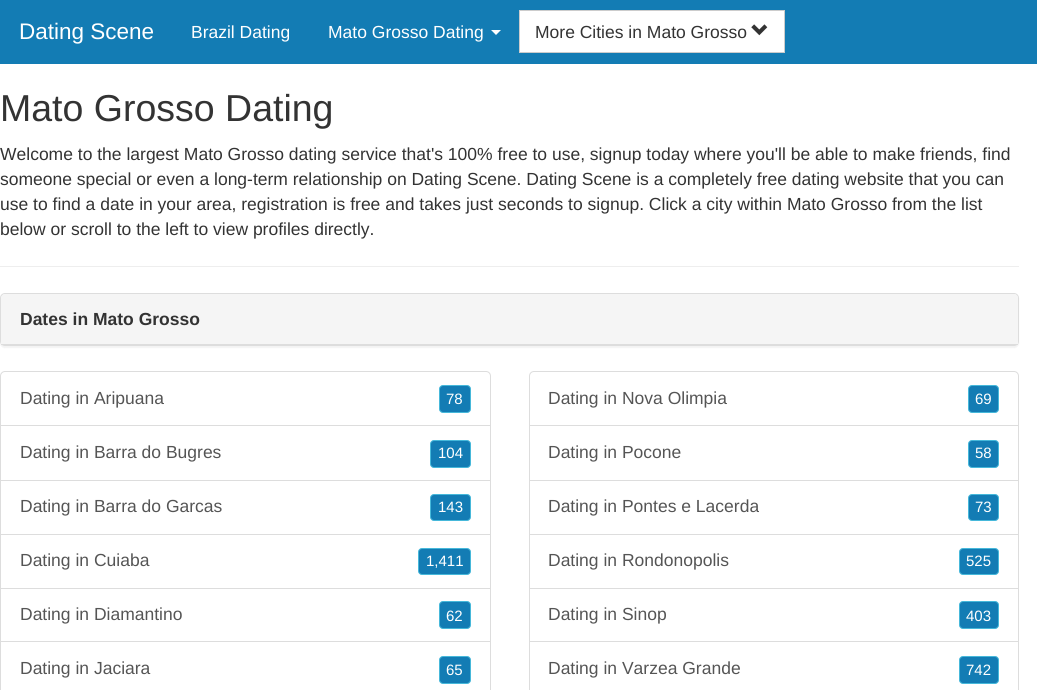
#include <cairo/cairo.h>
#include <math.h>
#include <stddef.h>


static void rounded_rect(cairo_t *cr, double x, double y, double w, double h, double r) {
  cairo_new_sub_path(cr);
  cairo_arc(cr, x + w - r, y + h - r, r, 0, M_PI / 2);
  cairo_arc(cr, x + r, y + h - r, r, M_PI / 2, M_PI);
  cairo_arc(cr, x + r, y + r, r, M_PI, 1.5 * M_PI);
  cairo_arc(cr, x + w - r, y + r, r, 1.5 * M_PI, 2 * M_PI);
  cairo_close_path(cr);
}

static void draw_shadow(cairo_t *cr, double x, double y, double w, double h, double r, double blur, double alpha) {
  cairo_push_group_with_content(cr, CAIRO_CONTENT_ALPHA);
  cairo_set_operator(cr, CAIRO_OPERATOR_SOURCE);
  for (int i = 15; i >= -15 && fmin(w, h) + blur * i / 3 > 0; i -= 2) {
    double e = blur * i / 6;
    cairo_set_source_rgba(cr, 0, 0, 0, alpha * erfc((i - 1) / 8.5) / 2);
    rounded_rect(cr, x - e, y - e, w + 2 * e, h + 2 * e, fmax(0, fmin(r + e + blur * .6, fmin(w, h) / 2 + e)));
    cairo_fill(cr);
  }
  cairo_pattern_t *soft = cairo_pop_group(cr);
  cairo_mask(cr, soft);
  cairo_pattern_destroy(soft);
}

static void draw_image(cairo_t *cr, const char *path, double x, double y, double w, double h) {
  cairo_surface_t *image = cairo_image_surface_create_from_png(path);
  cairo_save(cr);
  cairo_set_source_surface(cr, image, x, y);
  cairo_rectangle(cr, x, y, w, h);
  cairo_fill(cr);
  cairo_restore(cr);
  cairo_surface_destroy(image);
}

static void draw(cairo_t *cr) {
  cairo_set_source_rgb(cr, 1, 1, 1);
  cairo_paint(cr);
  cairo_set_source_rgb(cr, 19 / 255.0, 124 / 255.0, 180 / 255.0);
  cairo_rectangle(cr, 0, 0, 1037, 64);
  cairo_fill(cr);
  cairo_set_source_rgb(cr, 254 / 255.0, 254 / 255.0, 254 / 255.0);
  cairo_new_path(cr);
  cairo_move_to(cr, 491, 30);
  cairo_line_to(cr, 501, 30);
  cairo_line_to(cr, 496, 35);
  cairo_close_path(cr);
  cairo_fill(cr);
  cairo_set_source_rgb(cr, 1, 1, 1);
  cairo_rectangle(cr, 519.5, 10.5, 265, 42);
  cairo_fill_preserve(cr);
  cairo_set_source_rgb(cr, 204 / 255.0, 204 / 255.0, 204 / 255.0);
  cairo_set_line_width(cr, 1);
  cairo_stroke(cr);
  draw_image(cr, "images/1.png", 751, 24, 17, 12);
  cairo_set_source_rgb(cr, 238 / 255.0, 238 / 255.0, 238 / 255.0);
  cairo_rectangle(cr, 0, 266, 1019, 1);
  cairo_fill(cr);
  cairo_set_source_rgb(cr, 0, 0, 0);
  draw_shadow(cr, 0, 294, 1019, 54, 5, 0.5, 0.05);
  rounded_rect(cr, 0.5, 293.5, 1018, 52, 4.5);
  cairo_set_source_rgb(cr, 221 / 255.0, 221 / 255.0, 221 / 255.0);
  cairo_stroke(cr);
  cairo_set_source_rgb(cr, 245 / 255.0, 245 / 255.0, 245 / 255.0);
  cairo_new_path(cr);
  cairo_move_to(cr, 5, 294);
  cairo_line_to(cr, 1014, 294);
  cairo_curve_to(cr, 1016, 294, 1018, 296, 1018, 298);
  cairo_line_to(cr, 1018, 345);
  cairo_line_to(cr, 1, 345);
  cairo_line_to(cr, 1, 298);
  cairo_curve_to(cr, 1, 296, 3, 294, 5, 294);
  cairo_close_path(cr);
  cairo_fill(cr);
  cairo_set_source_rgb(cr, 221 / 255.0, 221 / 255.0, 221 / 255.0);
  cairo_rectangle(cr, 1, 344, 1017, 1);
  cairo_fill(cr);
  cairo_new_path(cr);
  cairo_move_to(cr, 5, 371.5);
  cairo_line_to(cr, 486, 371.5);
  cairo_curve_to(cr, 488.5, 371.5, 490.5, 373.5, 490.5, 376);
  cairo_line_to(cr, 490.5, 425.5);
  cairo_line_to(cr, 0.5, 425.5);
  cairo_line_to(cr, 0.5, 376);
  cairo_curve_to(cr, 0.5, 373.5, 2.5, 371.5, 5, 371.5);
  cairo_close_path(cr);
  cairo_stroke(cr);
  cairo_set_source_rgb(cr, 19 / 255.0, 124 / 255.0, 180 / 255.0);
  rounded_rect(cr, 439.5, 385.5, 31, 27, 3.5);
  cairo_fill_preserve(cr);
  cairo_set_source_rgb(cr, 70 / 255.0, 184 / 255.0, 218 / 255.0);
  cairo_stroke(cr);
  cairo_rectangle(cr, 0.5, 425.5, 490, 55);
  cairo_set_source_rgb(cr, 221 / 255.0, 221 / 255.0, 221 / 255.0);
  cairo_stroke(cr);
  cairo_set_source_rgb(cr, 19 / 255.0, 124 / 255.0, 180 / 255.0);
  rounded_rect(cr, 430.5, 440.5, 40, 27, 3.5);
  cairo_fill_preserve(cr);
  cairo_set_source_rgb(cr, 70 / 255.0, 184 / 255.0, 218 / 255.0);
  cairo_stroke(cr);
  cairo_rectangle(cr, 0.5, 480.5, 490, 54);
  cairo_set_source_rgb(cr, 221 / 255.0, 221 / 255.0, 221 / 255.0);
  cairo_stroke(cr);
  cairo_set_source_rgb(cr, 19 / 255.0, 124 / 255.0, 180 / 255.0);
  rounded_rect(cr, 430.5, 494.5, 40, 26, 3.5);
  cairo_fill_preserve(cr);
  cairo_set_source_rgb(cr, 70 / 255.0, 184 / 255.0, 218 / 255.0);
  cairo_stroke(cr);
  cairo_rectangle(cr, 0.5, 534.5, 490, 54);
  cairo_set_source_rgb(cr, 221 / 255.0, 221 / 255.0, 221 / 255.0);
  cairo_stroke(cr);
  cairo_set_source_rgb(cr, 19 / 255.0, 124 / 255.0, 180 / 255.0);
  rounded_rect(cr, 418.5, 548.5, 52, 26, 3.5);
  cairo_fill_preserve(cr);
  cairo_set_source_rgb(cr, 70 / 255.0, 184 / 255.0, 218 / 255.0);
  cairo_stroke(cr);
  cairo_rectangle(cr, 0.5, 588.5, 490, 54);
  cairo_set_source_rgb(cr, 221 / 255.0, 221 / 255.0, 221 / 255.0);
  cairo_stroke(cr);
  cairo_set_source_rgb(cr, 19 / 255.0, 124 / 255.0, 180 / 255.0);
  rounded_rect(cr, 439.5, 601.5, 31, 27, 3.5);
  cairo_fill_preserve(cr);
  cairo_set_source_rgb(cr, 70 / 255.0, 184 / 255.0, 218 / 255.0);
  cairo_stroke(cr);
  cairo_set_source_rgb(cr, 1, 1, 1);
  cairo_rectangle(cr, 1, 642, 489, 1);
  cairo_fill(cr);
  cairo_rectangle(cr, 0.5, 641.5, 490, 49);
  cairo_set_source_rgb(cr, 221 / 255.0, 221 / 255.0, 221 / 255.0);
  cairo_stroke(cr);
  cairo_set_source_rgb(cr, 19 / 255.0, 124 / 255.0, 180 / 255.0);
  rounded_rect(cr, 439.5, 656.5, 31, 27, 3.5);
  cairo_fill_preserve(cr);
  cairo_set_source_rgb(cr, 70 / 255.0, 184 / 255.0, 218 / 255.0);
  cairo_stroke(cr);
  cairo_new_path(cr);
  cairo_move_to(cr, 534, 371.5);
  cairo_line_to(cr, 1014, 371.5);
  cairo_curve_to(cr, 1016.5, 371.5, 1018.5, 373.5, 1018.5, 376);
  cairo_line_to(cr, 1018.5, 425.5);
  cairo_line_to(cr, 529.5, 425.5);
  cairo_line_to(cr, 529.5, 376);
  cairo_curve_to(cr, 529.5, 373.5, 531.5, 371.5, 534, 371.5);
  cairo_close_path(cr);
  cairo_set_source_rgb(cr, 221 / 255.0, 221 / 255.0, 221 / 255.0);
  cairo_stroke(cr);
  cairo_set_source_rgb(cr, 19 / 255.0, 124 / 255.0, 180 / 255.0);
  rounded_rect(cr, 968.5, 385.5, 30, 27, 3.5);
  cairo_fill_preserve(cr);
  cairo_set_source_rgb(cr, 70 / 255.0, 184 / 255.0, 218 / 255.0);
  cairo_stroke(cr);
  cairo_rectangle(cr, 529.5, 425.5, 489, 55);
  cairo_set_source_rgb(cr, 221 / 255.0, 221 / 255.0, 221 / 255.0);
  cairo_stroke(cr);
  cairo_set_source_rgb(cr, 19 / 255.0, 124 / 255.0, 180 / 255.0);
  rounded_rect(cr, 968.5, 440.5, 30, 27, 3.5);
  cairo_fill_preserve(cr);
  cairo_set_source_rgb(cr, 70 / 255.0, 184 / 255.0, 218 / 255.0);
  cairo_stroke(cr);
  cairo_rectangle(cr, 529.5, 480.5, 489, 54);
  cairo_set_source_rgb(cr, 221 / 255.0, 221 / 255.0, 221 / 255.0);
  cairo_stroke(cr);
  cairo_set_source_rgb(cr, 19 / 255.0, 124 / 255.0, 180 / 255.0);
  rounded_rect(cr, 968.5, 494.5, 30, 26, 3.5);
  cairo_fill_preserve(cr);
  cairo_set_source_rgb(cr, 70 / 255.0, 184 / 255.0, 218 / 255.0);
  cairo_stroke(cr);
  cairo_rectangle(cr, 529.5, 534.5, 489, 54);
  cairo_set_source_rgb(cr, 221 / 255.0, 221 / 255.0, 221 / 255.0);
  cairo_stroke(cr);
  cairo_set_source_rgb(cr, 19 / 255.0, 124 / 255.0, 180 / 255.0);
  rounded_rect(cr, 959.5, 548.5, 39, 26, 3.5);
  cairo_fill_preserve(cr);
  cairo_set_source_rgb(cr, 70 / 255.0, 184 / 255.0, 218 / 255.0);
  cairo_stroke(cr);
  cairo_rectangle(cr, 529.5, 588.5, 489, 54);
  cairo_set_source_rgb(cr, 221 / 255.0, 221 / 255.0, 221 / 255.0);
  cairo_stroke(cr);
  cairo_set_source_rgb(cr, 19 / 255.0, 124 / 255.0, 180 / 255.0);
  rounded_rect(cr, 959.5, 601.5, 39, 27, 3.5);
  cairo_fill_preserve(cr);
  cairo_set_source_rgb(cr, 70 / 255.0, 184 / 255.0, 218 / 255.0);
  cairo_stroke(cr);
  cairo_set_source_rgb(cr, 1, 1, 1);
  cairo_rectangle(cr, 530, 642, 488, 1);
  cairo_fill(cr);
  cairo_rectangle(cr, 529.5, 641.5, 489, 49);
  cairo_set_source_rgb(cr, 221 / 255.0, 221 / 255.0, 221 / 255.0);
  cairo_stroke(cr);
  cairo_set_source_rgb(cr, 19 / 255.0, 124 / 255.0, 180 / 255.0);
  rounded_rect(cr, 959.5, 656.5, 39, 27, 3.5);
  cairo_fill_preserve(cr);
  cairo_set_source_rgb(cr, 70 / 255.0, 184 / 255.0, 218 / 255.0);
  cairo_stroke(cr);
  cairo_select_font_face(cr, "Liberation Sans", CAIRO_FONT_SLANT_NORMAL, CAIRO_FONT_WEIGHT_NORMAL);
  cairo_set_font_size(cr, 22.5);
  cairo_set_source_rgb(cr, 1, 1, 1);
  cairo_move_to(cr, 19, 39);
  cairo_show_text(cr, "Dating Scene");
  cairo_set_font_size(cr, 17.5);
  cairo_move_to(cr, 191, 38);
  cairo_show_text(cr, "Brazil Dating");
  cairo_move_to(cr, 328, 38);
  cairo_show_text(cr, "Mato Grosso Dating");
  cairo_set_source_rgb(cr, 51 / 255.0, 51 / 255.0, 51 / 255.0);
  cairo_move_to(cr, 535, 38);
  cairo_show_text(cr, "More Cities in Mato Grosso");
  cairo_set_font_size(cr, 37.5);
  cairo_move_to(cr, 0, 121);
  cairo_show_text(cr, "Mato Grosso Dating");
  cairo_set_font_size(cr, 17.5);
  cairo_move_to(cr, 0, 160);
  cairo_show_text(cr, "Welcome to the largest Mato Grosso dating service that's 100% free to use, signup today where you'll be able to make friends, find");
  cairo_move_to(cr, 0, 185);
  cairo_show_text(cr, "someone special or even a long-term relationship on Dating Scene. Dating Scene is a completely free dating website that you can");
  cairo_move_to(cr, 0, 210);
  cairo_show_text(cr, "use to find a date in your area, registration is free and takes just seconds to signup. Click a city within Mato Grosso from the list");
  cairo_move_to(cr, 0, 235);
  cairo_show_text(cr, "below or scroll to the left to view profiles directly.");
  cairo_select_font_face(cr, "Liberation Sans", CAIRO_FONT_SLANT_NORMAL, CAIRO_FONT_WEIGHT_BOLD);
  cairo_move_to(cr, 20, 325);
  cairo_show_text(cr, "Dates in Mato Grosso");
  cairo_select_font_face(cr, "Liberation Sans", CAIRO_FONT_SLANT_NORMAL, CAIRO_FONT_WEIGHT_NORMAL);
  cairo_set_source_rgb(cr, 85 / 255.0, 85 / 255.0, 85 / 255.0);
  cairo_move_to(cr, 20, 404);
  cairo_show_text(cr, "Dating in Aripuana");
  cairo_set_font_size(cr, 15);
  cairo_set_source_rgb(cr, 1, 1, 1);
  cairo_move_to(cr, 446, 404);
  cairo_show_text(cr, "78");
  cairo_set_font_size(cr, 17.5);
  cairo_set_source_rgb(cr, 85 / 255.0, 85 / 255.0, 85 / 255.0);
  cairo_move_to(cr, 20, 458);
  cairo_show_text(cr, "Dating in Barra do Bugres");
  cairo_set_font_size(cr, 15);
  cairo_set_source_rgb(cr, 1, 1, 1);
  cairo_move_to(cr, 438, 458);
  cairo_show_text(cr, "104");
  cairo_set_font_size(cr, 17.5);
  cairo_set_source_rgb(cr, 85 / 255.0, 85 / 255.0, 85 / 255.0);
  cairo_move_to(cr, 20, 512);
  cairo_show_text(cr, "Dating in Barra do Garcas");
  cairo_set_font_size(cr, 15);
  cairo_set_source_rgb(cr, 1, 1, 1);
  cairo_move_to(cr, 438, 512);
  cairo_show_text(cr, "143");
  cairo_set_font_size(cr, 17.5);
  cairo_set_source_rgb(cr, 85 / 255.0, 85 / 255.0, 85 / 255.0);
  cairo_move_to(cr, 20, 566);
  cairo_show_text(cr, "Dating in Cuiaba");
  cairo_set_font_size(cr, 15);
  cairo_set_source_rgb(cr, 1, 1, 1);
  cairo_move_to(cr, 426, 566);
  cairo_show_text(cr, "1,411");
  cairo_set_font_size(cr, 17.5);
  cairo_set_source_rgb(cr, 85 / 255.0, 85 / 255.0, 85 / 255.0);
  cairo_move_to(cr, 20, 620);
  cairo_show_text(cr, "Dating in Diamantino");
  cairo_set_font_size(cr, 15);
  cairo_set_source_rgb(cr, 1, 1, 1);
  cairo_move_to(cr, 446, 621);
  cairo_show_text(cr, "62");
  cairo_set_font_size(cr, 17.5);
  cairo_set_source_rgb(cr, 85 / 255.0, 85 / 255.0, 85 / 255.0);
  cairo_move_to(cr, 20, 674);
  cairo_show_text(cr, "Dating in Jaciara");
  cairo_set_font_size(cr, 15);
  cairo_set_source_rgb(cr, 1, 1, 1);
  cairo_move_to(cr, 446, 675);
  cairo_show_text(cr, "65");
  cairo_set_font_size(cr, 17.5);
  cairo_set_source_rgb(cr, 85 / 255.0, 85 / 255.0, 85 / 255.0);
  cairo_move_to(cr, 548, 404);
  cairo_show_text(cr, "Dating in Nova Olimpia");
  cairo_set_font_size(cr, 15);
  cairo_set_source_rgb(cr, 1, 1, 1);
  cairo_move_to(cr, 975, 404);
  cairo_show_text(cr, "69");
  cairo_set_font_size(cr, 17.5);
  cairo_set_source_rgb(cr, 85 / 255.0, 85 / 255.0, 85 / 255.0);
  cairo_move_to(cr, 548, 458);
  cairo_show_text(cr, "Dating in Pocone");
  cairo_set_font_size(cr, 15);
  cairo_set_source_rgb(cr, 1, 1, 1);
  cairo_move_to(cr, 975, 458);
  cairo_show_text(cr, "58");
  cairo_set_font_size(cr, 17.5);
  cairo_set_source_rgb(cr, 85 / 255.0, 85 / 255.0, 85 / 255.0);
  cairo_move_to(cr, 548, 512);
  cairo_show_text(cr, "Dating in Pontes e Lacerda");
  cairo_set_font_size(cr, 15);
  cairo_set_source_rgb(cr, 1, 1, 1);
  cairo_move_to(cr, 975, 512);
  cairo_show_text(cr, "73");
  cairo_set_font_size(cr, 17.5);
  cairo_set_source_rgb(cr, 85 / 255.0, 85 / 255.0, 85 / 255.0);
  cairo_move_to(cr, 548, 566);
  cairo_show_text(cr, "Dating in Rondonopolis");
  cairo_set_font_size(cr, 15);
  cairo_set_source_rgb(cr, 1, 1, 1);
  cairo_move_to(cr, 966, 566);
  cairo_show_text(cr, "525");
  cairo_set_font_size(cr, 17.5);
  cairo_set_source_rgb(cr, 85 / 255.0, 85 / 255.0, 85 / 255.0);
  cairo_move_to(cr, 548, 620);
  cairo_show_text(cr, "Dating in Sinop");
  cairo_set_font_size(cr, 15);
  cairo_set_source_rgb(cr, 1, 1, 1);
  cairo_move_to(cr, 966, 621);
  cairo_show_text(cr, "403");
  cairo_set_font_size(cr, 17.5);
  cairo_set_source_rgb(cr, 85 / 255.0, 85 / 255.0, 85 / 255.0);
  cairo_move_to(cr, 548, 674);
  cairo_show_text(cr, "Dating in Varzea Grande");
  cairo_set_font_size(cr, 15);
  cairo_set_source_rgb(cr, 1, 1, 1);
  cairo_move_to(cr, 966, 675);
  cairo_show_text(cr, "742");
}

int main(void) {
  cairo_surface_t *surface = cairo_image_surface_create(CAIRO_FORMAT_RGB24, 1037, 690);
  cairo_t *cr = cairo_create(surface);
  cairo_font_options_t *options = cairo_font_options_create();
  cairo_font_options_set_hint_metrics(options, CAIRO_HINT_METRICS_OFF);
  cairo_font_options_set_hint_style(options, CAIRO_HINT_STYLE_NONE);
  cairo_set_font_options(cr, options);
  cairo_set_miter_limit(cr, 4);
  draw(cr);
  cairo_surface_write_to_png(surface, "out.png");
  cairo_font_options_destroy(options);
  cairo_destroy(cr);
  cairo_surface_destroy(surface);
  return 0;
}
